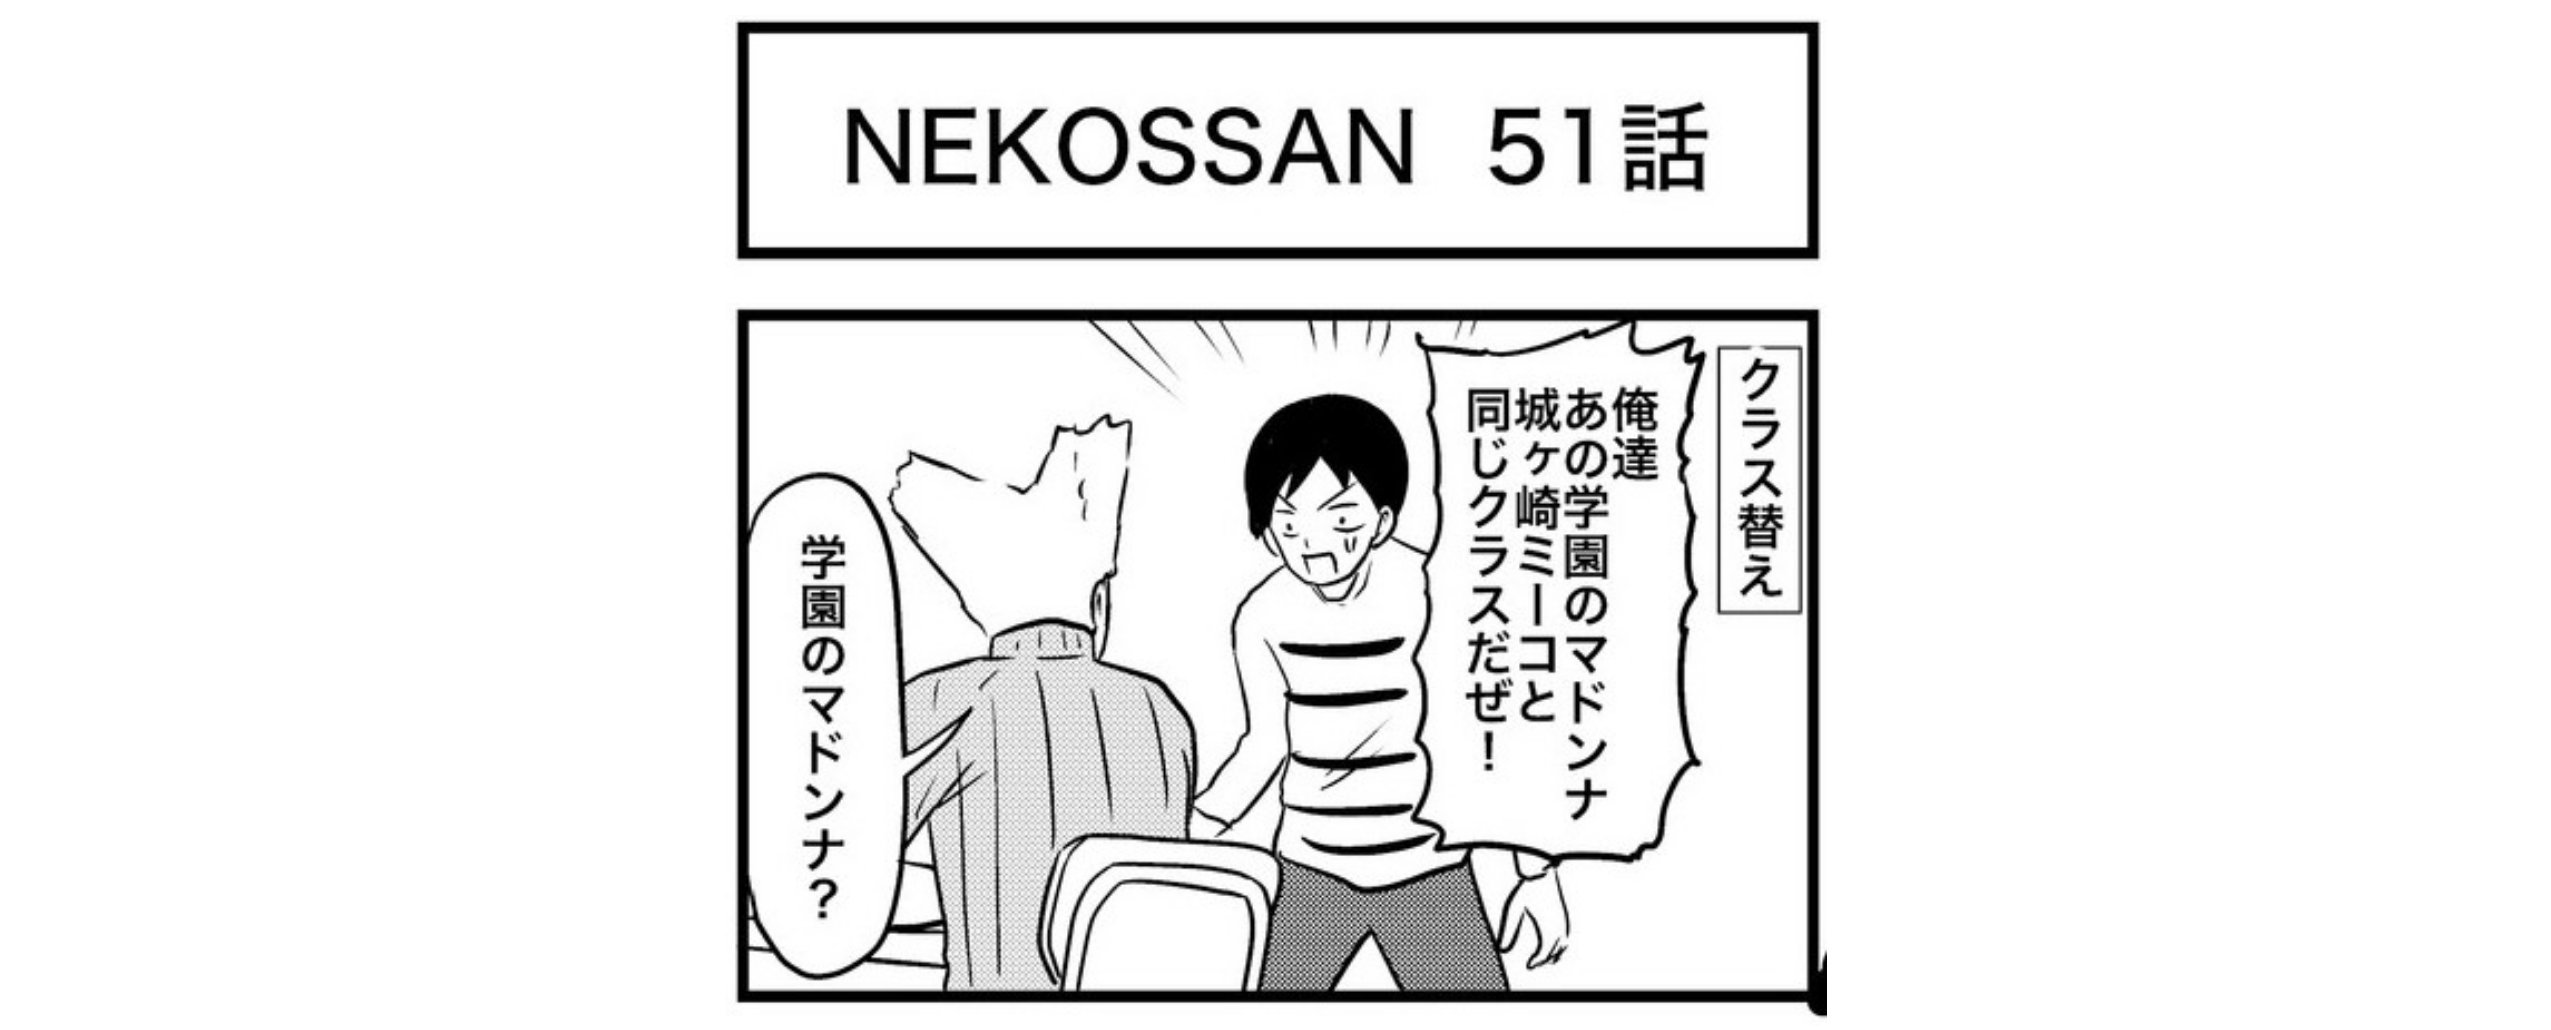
#include <cairo/cairo.h>
#include <math.h>
#include <stddef.h>


static void draw_image(cairo_t *cr, const char *path, double x, double y, double w, double h) {
  cairo_surface_t *image = cairo_image_surface_create_from_png(path);
  cairo_save(cr);
  cairo_set_source_surface(cr, image, x, y);
  cairo_rectangle(cr, x, y, w, h);
  cairo_fill(cr);
  cairo_restore(cr);
  cairo_surface_destroy(image);
}

static void draw(cairo_t *cr) {
  cairo_set_source_rgb(cr, 1, 1, 1);
  cairo_paint(cr);
  draw_image(cr, "images/1.png", 725, 15, 1102, 1011);
}

int main(void) {
  cairo_surface_t *surface = cairo_image_surface_create(CAIRO_FORMAT_RGB24, 2551, 1030);
  cairo_t *cr = cairo_create(surface);
  cairo_font_options_t *options = cairo_font_options_create();
  cairo_font_options_set_hint_metrics(options, CAIRO_HINT_METRICS_OFF);
  cairo_font_options_set_hint_style(options, CAIRO_HINT_STYLE_NONE);
  cairo_set_font_options(cr, options);
  cairo_set_miter_limit(cr, 4);
  draw(cr);
  cairo_surface_write_to_png(surface, "out.png");
  cairo_font_options_destroy(options);
  cairo_destroy(cr);
  cairo_surface_destroy(surface);
  return 0;
}
